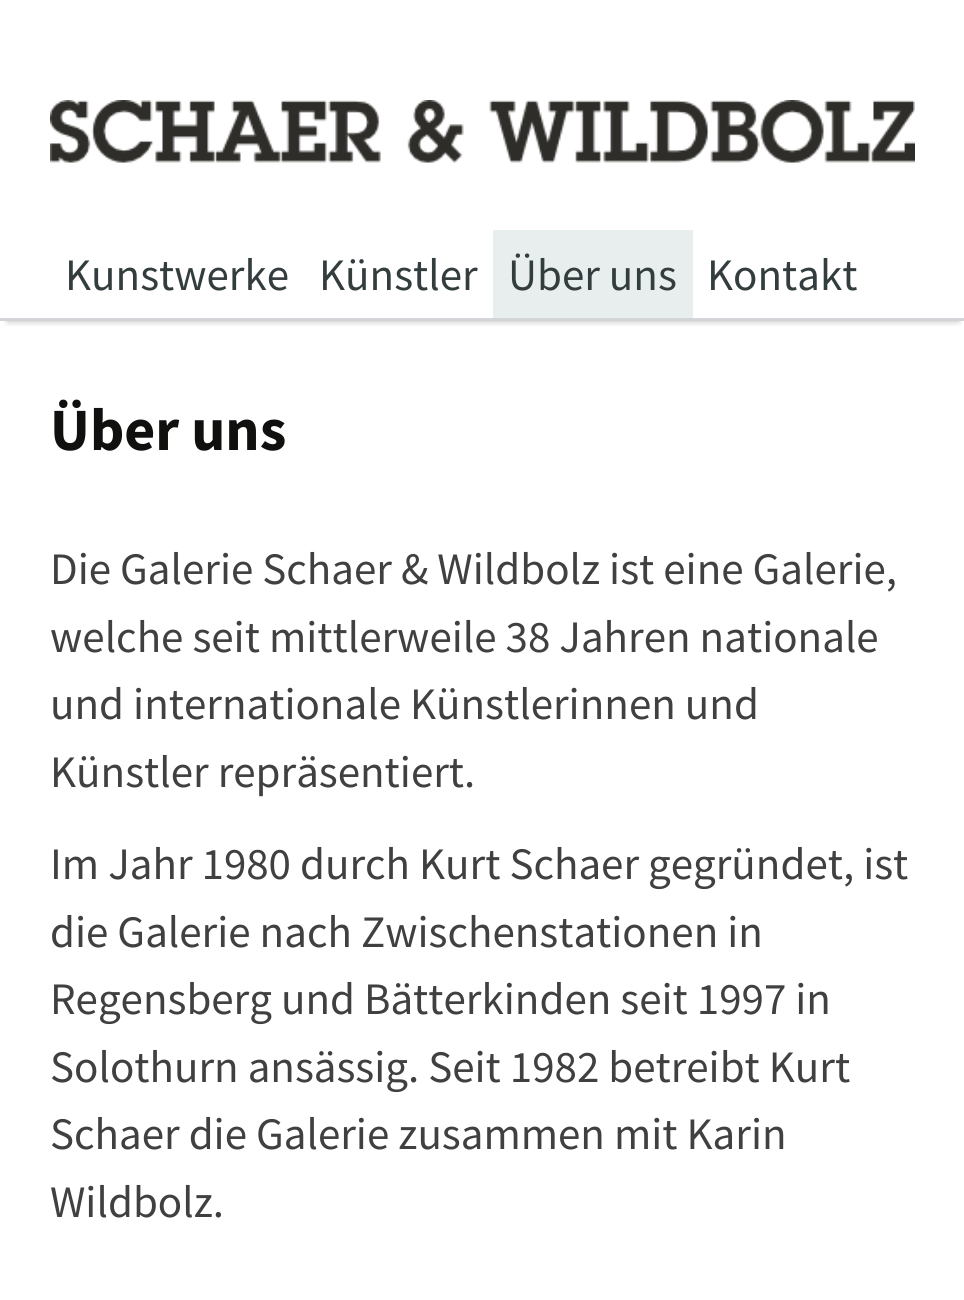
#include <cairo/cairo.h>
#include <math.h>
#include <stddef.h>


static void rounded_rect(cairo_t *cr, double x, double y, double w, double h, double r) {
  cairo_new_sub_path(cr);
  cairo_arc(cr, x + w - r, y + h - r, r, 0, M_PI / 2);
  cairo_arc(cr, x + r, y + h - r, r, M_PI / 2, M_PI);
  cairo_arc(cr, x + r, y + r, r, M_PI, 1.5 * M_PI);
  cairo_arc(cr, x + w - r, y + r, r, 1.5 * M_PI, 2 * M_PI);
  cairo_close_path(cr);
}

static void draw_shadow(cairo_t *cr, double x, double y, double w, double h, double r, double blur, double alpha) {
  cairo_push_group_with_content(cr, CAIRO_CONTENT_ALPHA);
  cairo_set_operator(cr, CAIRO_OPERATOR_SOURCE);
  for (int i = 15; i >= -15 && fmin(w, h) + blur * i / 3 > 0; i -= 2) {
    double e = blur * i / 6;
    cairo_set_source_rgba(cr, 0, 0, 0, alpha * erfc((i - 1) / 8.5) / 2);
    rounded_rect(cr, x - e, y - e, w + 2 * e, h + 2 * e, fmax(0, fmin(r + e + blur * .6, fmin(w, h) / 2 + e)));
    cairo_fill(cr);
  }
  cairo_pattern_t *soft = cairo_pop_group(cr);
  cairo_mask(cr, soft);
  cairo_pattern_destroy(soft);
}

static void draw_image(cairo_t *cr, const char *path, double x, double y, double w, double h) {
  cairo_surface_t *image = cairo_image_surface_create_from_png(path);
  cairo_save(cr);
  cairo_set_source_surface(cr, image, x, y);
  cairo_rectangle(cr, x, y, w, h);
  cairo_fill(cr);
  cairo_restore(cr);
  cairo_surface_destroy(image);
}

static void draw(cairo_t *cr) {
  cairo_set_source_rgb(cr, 1, 1, 1);
  cairo_paint(cr);
  cairo_save(cr);
  cairo_rectangle(cr, 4, 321, 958, 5);
  cairo_clip(cr);
  cairo_set_source_rgb(cr, 0, 0, 0);
  draw_shadow(cr, 8, 15, 950, 305, 0, 4, 0.37);
  cairo_restore(cr);
  cairo_set_source_rgb(cr, 210 / 255.0, 212 / 255.0, 215 / 255.0);
  cairo_rectangle(cr, 0, 318, 964, 3);
  cairo_fill(cr);
  draw_image(cr, "images/1.png", 50, 100, 865, 63);
  cairo_set_source_rgb(cr, 232 / 255.0, 238 / 255.0, 238 / 255.0);
  cairo_rectangle(cr, 493, 230, 200, 88);
  cairo_fill(cr);
  cairo_select_font_face(cr, "Source Sans Pro", CAIRO_FONT_SLANT_NORMAL, CAIRO_FONT_WEIGHT_NORMAL);
  cairo_set_font_size(cr, 45);
  cairo_set_source_rgb(cr, 52 / 255.0, 61 / 255.0, 62 / 255.0);
  cairo_move_to(cr, 65, 290);
  cairo_show_text(cr, "Kunstwerke");
  cairo_move_to(cr, 319, 290);
  cairo_show_text(cr, "Künstler");
  cairo_move_to(cr, 508, 290);
  cairo_show_text(cr, "Über uns");
  cairo_move_to(cr, 707, 290);
  cairo_show_text(cr, "Kontakt");
  cairo_select_font_face(cr, "Source Sans Pro", CAIRO_FONT_SLANT_NORMAL, CAIRO_FONT_WEIGHT_BOLD);
  cairo_set_font_size(cr, 60);
  cairo_set_source_rgb(cr, 16 / 255.0, 16 / 255.0, 14 / 255.0);
  cairo_move_to(cr, 50, 450);
  cairo_show_text(cr, "Über uns");
  cairo_select_font_face(cr, "Source Sans Pro", CAIRO_FONT_SLANT_NORMAL, CAIRO_FONT_WEIGHT_NORMAL);
  cairo_set_font_size(cr, 45);
  cairo_set_source_rgb(cr, 64 / 255.0, 64 / 255.0, 64 / 255.0);
  cairo_move_to(cr, 50, 584);
  cairo_show_text(cr, "Die Galerie Schaer & Wildbolz ist eine Galerie,");
  cairo_move_to(cr, 50, 652);
  cairo_show_text(cr, "welche seit mittlerweile 38 Jahren nationale");
  cairo_move_to(cr, 50, 719);
  cairo_show_text(cr, "und internationale Künstlerinnen und");
  cairo_move_to(cr, 50, 787);
  cairo_show_text(cr, "Künstler repräsentiert.");
  cairo_move_to(cr, 50, 879);
  cairo_show_text(cr, "Im Jahr 1980 durch Kurt Schaer gegründet, ist");
  cairo_move_to(cr, 50, 947);
  cairo_show_text(cr, "die Galerie nach Zwischenstationen in");
  cairo_move_to(cr, 50, 1014);
  cairo_show_text(cr, "Regensberg und Bätterkinden seit 1997 in");
  cairo_move_to(cr, 50, 1082);
  cairo_show_text(cr, "Solothurn ansässig. Seit 1982 betreibt Kurt");
  cairo_move_to(cr, 50, 1149);
  cairo_show_text(cr, "Schaer die Galerie zusammen mit Karin");
  cairo_move_to(cr, 50, 1217);
  cairo_show_text(cr, "Wildbolz.");
}

int main(void) {
  cairo_surface_t *surface = cairo_image_surface_create(CAIRO_FORMAT_RGB24, 964, 1300);
  cairo_t *cr = cairo_create(surface);
  cairo_font_options_t *options = cairo_font_options_create();
  cairo_font_options_set_hint_metrics(options, CAIRO_HINT_METRICS_OFF);
  cairo_font_options_set_hint_style(options, CAIRO_HINT_STYLE_NONE);
  cairo_set_font_options(cr, options);
  cairo_set_miter_limit(cr, 4);
  draw(cr);
  cairo_surface_write_to_png(surface, "out.png");
  cairo_font_options_destroy(options);
  cairo_destroy(cr);
  cairo_surface_destroy(surface);
  return 0;
}
